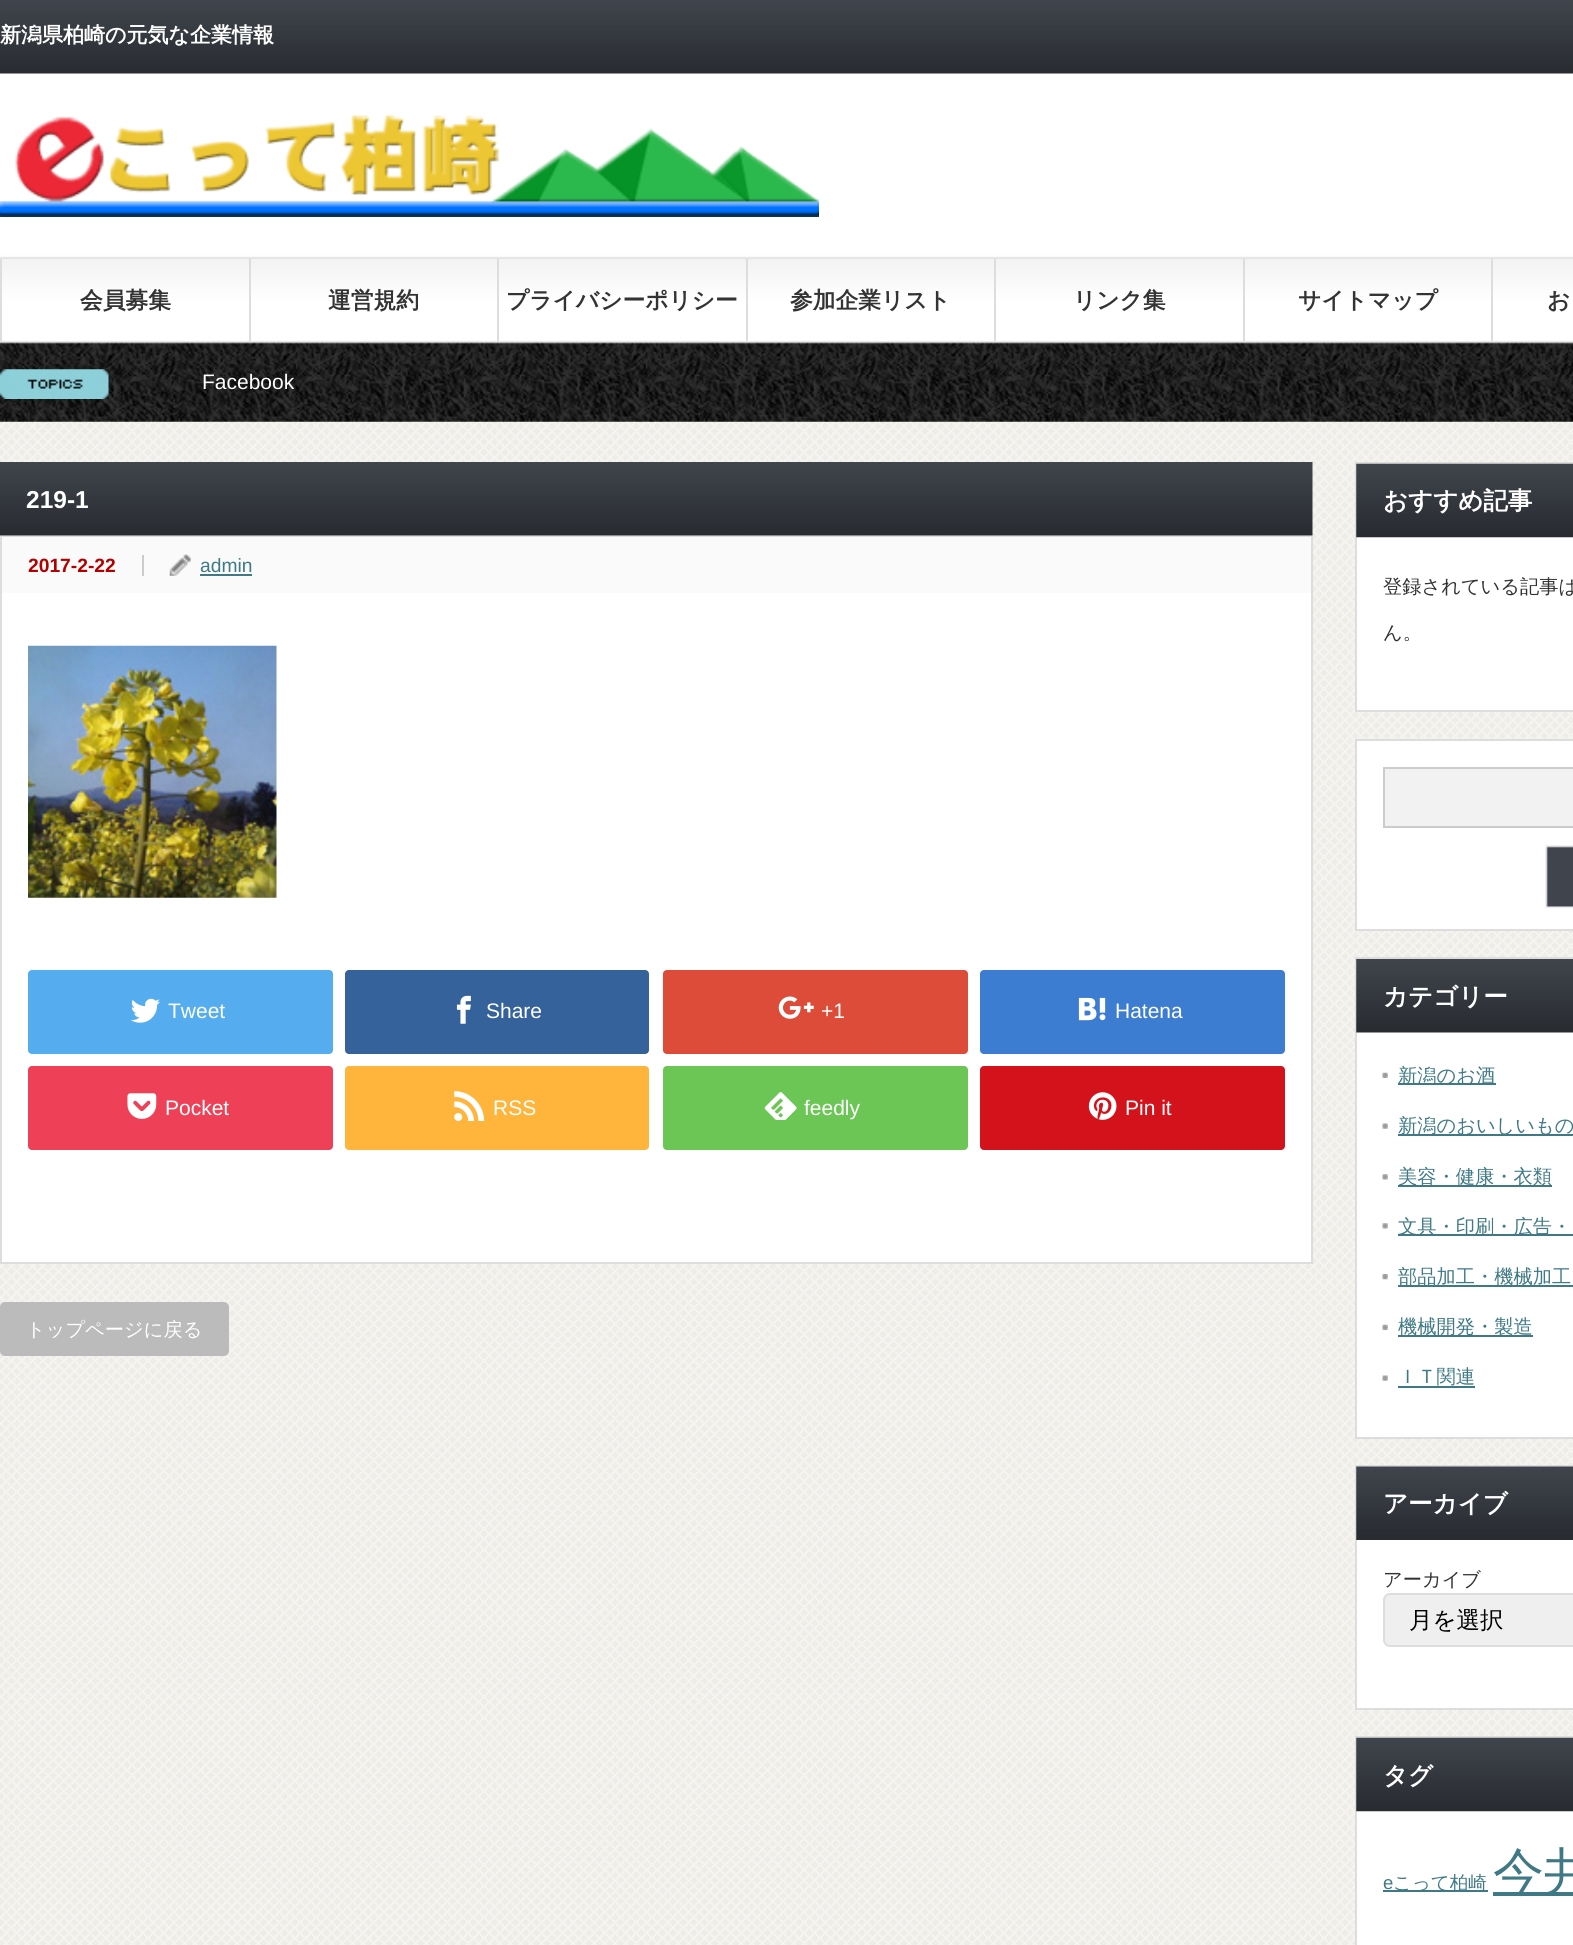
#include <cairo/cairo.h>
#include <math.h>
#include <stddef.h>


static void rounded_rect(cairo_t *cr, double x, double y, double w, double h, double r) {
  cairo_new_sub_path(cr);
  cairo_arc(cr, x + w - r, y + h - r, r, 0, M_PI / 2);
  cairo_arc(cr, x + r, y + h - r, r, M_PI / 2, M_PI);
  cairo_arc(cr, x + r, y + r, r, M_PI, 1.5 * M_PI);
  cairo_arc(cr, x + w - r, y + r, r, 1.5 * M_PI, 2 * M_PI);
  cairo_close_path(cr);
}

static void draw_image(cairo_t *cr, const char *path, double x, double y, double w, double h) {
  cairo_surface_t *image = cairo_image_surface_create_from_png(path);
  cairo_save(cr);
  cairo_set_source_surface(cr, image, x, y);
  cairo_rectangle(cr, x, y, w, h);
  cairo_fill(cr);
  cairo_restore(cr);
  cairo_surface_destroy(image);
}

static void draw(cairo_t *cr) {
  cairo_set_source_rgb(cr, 1, 1, 1);
  cairo_paint(cr);
  draw_image(cr, "images/1.png", 0, 421, 1573, 1524);
  draw_image(cr, "images/2.png", 0, 0, 1573, 422);
  draw_image(cr, "images/3.png", 0, 115, 819, 102);
  cairo_set_source_rgb(cr, 243 / 255.0, 243 / 255.0, 243 / 255.0);
  cairo_rectangle(cr, 0, 259, 248, 1);
  cairo_fill(cr);
  cairo_set_source_rgb(cr, 221 / 255.0, 221 / 255.0, 221 / 255.0);
  cairo_rectangle(cr, 0, 259, 2, 82);
  cairo_fill(cr);
  cairo_set_source_rgb(cr, 243 / 255.0, 243 / 255.0, 243 / 255.0);
  cairo_rectangle(cr, 249, 259, 496, 1);
  cairo_fill(cr);
  cairo_set_source_rgb(cr, 221 / 255.0, 221 / 255.0, 221 / 255.0);
  cairo_rectangle(cr, 249, 259, 2, 82);
  cairo_fill(cr);
  cairo_rectangle(cr, 497, 259, 2, 82);
  cairo_fill(cr);
  cairo_set_source_rgb(cr, 243 / 255.0, 243 / 255.0, 243 / 255.0);
  cairo_rectangle(cr, 746, 259, 496, 1);
  cairo_fill(cr);
  cairo_set_source_rgb(cr, 221 / 255.0, 221 / 255.0, 221 / 255.0);
  cairo_rectangle(cr, 746, 259, 2, 82);
  cairo_fill(cr);
  cairo_rectangle(cr, 994, 259, 2, 82);
  cairo_fill(cr);
  cairo_set_source_rgb(cr, 243 / 255.0, 243 / 255.0, 243 / 255.0);
  cairo_rectangle(cr, 1243, 259, 330, 1);
  cairo_fill(cr);
  cairo_set_source_rgb(cr, 221 / 255.0, 221 / 255.0, 221 / 255.0);
  cairo_rectangle(cr, 1243, 259, 2, 82);
  cairo_fill(cr);
  cairo_rectangle(cr, 1491, 259, 2, 82);
  cairo_fill(cr);
  draw_image(cr, "images/4.png", 0, 369, 109, 30);
  draw_image(cr, "images/5.png", 0, 462, 1313, 74);
  cairo_set_source_rgb(cr, 1, 1, 1);
  cairo_rectangle(cr, 2, 593, 1309, 669);
  cairo_fill(cr);
  cairo_rectangle(cr, 1, 537, 1311, 726);
  cairo_set_source_rgb(cr, 221 / 255.0, 221 / 255.0, 221 / 255.0);
  cairo_stroke(cr);
  cairo_set_source_rgb(cr, 250 / 255.0, 250 / 255.0, 250 / 255.0);
  cairo_rectangle(cr, 2, 537, 1309, 56);
  cairo_fill(cr);
  cairo_set_source_rgb(cr, 204 / 255.0, 204 / 255.0, 204 / 255.0);
  cairo_rectangle(cr, 142, 555, 2, 21);
  cairo_fill(cr);
  draw_image(cr, "images/6.png", 169, 554, 22, 22);
  cairo_set_source_rgb(cr, 63 / 255.0, 121 / 255.0, 133 / 255.0);
  cairo_rectangle(cr, 200, 574, 52, 2);
  cairo_fill(cr);
  draw_image(cr, "images/7.png", 28, 645, 249, 253);
  cairo_set_source_rgb(cr, 85 / 255.0, 172 / 255.0, 238 / 255.0);
  rounded_rect(cr, 28, 970, 305, 84, 4);
  cairo_fill(cr);
  draw_image(cr, "images/8.png", 131, 998, 29, 25);
  cairo_set_source_rgb(cr, 53 / 255.0, 98 / 255.0, 154 / 255.0);
  rounded_rect(cr, 345, 970, 304, 84, 4);
  cairo_fill(cr);
  draw_image(cr, "images/9.png", 456, 995, 15, 29);
  cairo_set_source_rgb(cr, 221 / 255.0, 75 / 255.0, 57 / 255.0);
  rounded_rect(cr, 663, 970, 305, 84, 4);
  cairo_fill(cr);
  draw_image(cr, "images/10.png", 778, 996, 36, 23);
  cairo_set_source_rgb(cr, 60 / 255.0, 125 / 255.0, 209 / 255.0);
  rounded_rect(cr, 980, 970, 305, 84, 4);
  cairo_fill(cr);
  draw_image(cr, "images/11.png", 1078, 997, 28, 24);
  cairo_set_source_rgb(cr, 238 / 255.0, 64 / 255.0, 86 / 255.0);
  rounded_rect(cr, 28, 1066, 305, 84, 4);
  cairo_fill(cr);
  draw_image(cr, "images/12.png", 127, 1093, 30, 26);
  cairo_set_source_rgb(cr, 1, 181 / 255.0, 60 / 255.0);
  rounded_rect(cr, 345, 1066, 304, 84, 4);
  cairo_fill(cr);
  draw_image(cr, "images/13.png", 454, 1091, 31, 30);
  cairo_set_source_rgb(cr, 108 / 255.0, 198 / 255.0, 85 / 255.0);
  rounded_rect(cr, 663, 1066, 305, 84, 4);
  cairo_fill(cr);
  draw_image(cr, "images/14.png", 764, 1092, 33, 28);
  cairo_set_source_rgb(cr, 212 / 255.0, 18 / 255.0, 28 / 255.0);
  rounded_rect(cr, 980, 1066, 305, 84, 4);
  cairo_fill(cr);
  draw_image(cr, "images/15.png", 1088, 1092, 29, 28);
  cairo_set_source_rgb(cr, 187 / 255.0, 187 / 255.0, 187 / 255.0);
  rounded_rect(cr, 0, 1302, 229, 54, 5);
  cairo_fill(cr);
  cairo_set_source_rgb(cr, 1, 1, 1);
  cairo_rectangle(cr, 1357, 537, 216, 173);
  cairo_fill(cr);
  cairo_rectangle(cr, 1356, 463, 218, 248);
  cairo_set_source_rgb(cr, 221 / 255.0, 221 / 255.0, 221 / 255.0);
  cairo_stroke(cr);
  draw_image(cr, "images/16.png", 1356, 463, 217, 75);
  cairo_set_source_rgb(cr, 1, 1, 1);
  cairo_rectangle(cr, 1356, 740, 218, 190);
  cairo_fill_preserve(cr);
  cairo_set_source_rgb(cr, 221 / 255.0, 221 / 255.0, 221 / 255.0);
  cairo_stroke(cr);
  cairo_set_source_rgb(cr, 242 / 255.0, 242 / 255.0, 242 / 255.0);
  cairo_rectangle(cr, 1384, 768, 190, 59);
  cairo_fill_preserve(cr);
  cairo_set_source_rgb(cr, 204 / 255.0, 204 / 255.0, 204 / 255.0);
  cairo_stroke(cr);
  draw_image(cr, "images/17.png", 1545, 845, 28, 64);
  cairo_set_source_rgb(cr, 1, 1, 1);
  cairo_rectangle(cr, 1357, 1032, 216, 405);
  cairo_fill(cr);
  cairo_rectangle(cr, 1356, 958, 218, 480);
  cairo_set_source_rgb(cr, 221 / 255.0, 221 / 255.0, 221 / 255.0);
  cairo_stroke(cr);
  draw_image(cr, "images/18.png", 1356, 959, 217, 74);
  draw_image(cr, "images/19.png", 1382, 1072, 6, 6);
  cairo_set_source_rgb(cr, 63 / 255.0, 121 / 255.0, 133 / 255.0);
  cairo_rectangle(cr, 1398, 1083, 98, 2);
  cairo_fill(cr);
  draw_image(cr, "images/20.png", 1382, 1123, 6, 6);
  cairo_rectangle(cr, 1398, 1134, 175, 2);
  cairo_fill(cr);
  draw_image(cr, "images/21.png", 1382, 1174, 6, 6);
  cairo_rectangle(cr, 1398, 1185, 154, 2);
  cairo_fill(cr);
  draw_image(cr, "images/21.png", 1382, 1223, 6, 6);
  cairo_rectangle(cr, 1398, 1234, 175, 2);
  cairo_fill(cr);
  draw_image(cr, "images/22.png", 1382, 1274, 6, 6);
  cairo_rectangle(cr, 1398, 1285, 175, 2);
  cairo_fill(cr);
  draw_image(cr, "images/19.png", 1382, 1324, 6, 6);
  cairo_rectangle(cr, 1398, 1335, 135, 2);
  cairo_fill(cr);
  draw_image(cr, "images/20.png", 1382, 1375, 6, 6);
  cairo_rectangle(cr, 1398, 1386, 77, 2);
  cairo_fill(cr);
  cairo_set_source_rgb(cr, 1, 1, 1);
  cairo_rectangle(cr, 1357, 1540, 216, 168);
  cairo_fill(cr);
  cairo_rectangle(cr, 1356, 1466, 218, 243);
  cairo_set_source_rgb(cr, 221 / 255.0, 221 / 255.0, 221 / 255.0);
  cairo_stroke(cr);
  draw_image(cr, "images/23.png", 1356, 1466, 217, 74);
  cairo_set_source_rgb(cr, 239 / 255.0, 239 / 255.0, 239 / 255.0);
  rounded_rect(cr, 1384, 1594, 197, 52, 6);
  cairo_fill_preserve(cr);
  cairo_set_source_rgb(cr, 221 / 255.0, 221 / 255.0, 221 / 255.0);
  cairo_stroke(cr);
  cairo_set_source_rgb(cr, 1, 1, 1);
  cairo_rectangle(cr, 1357, 1811, 216, 134);
  cairo_fill(cr);
  cairo_rectangle(cr, 1356, 1737, 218, 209);
  cairo_set_source_rgb(cr, 221 / 255.0, 221 / 255.0, 221 / 255.0);
  cairo_stroke(cr);
  draw_image(cr, "images/16.png", 1356, 1737, 217, 75);
  cairo_set_source_rgb(cr, 63 / 255.0, 121 / 255.0, 133 / 255.0);
  cairo_rectangle(cr, 1383, 1890, 105, 2);
  cairo_fill(cr);
  cairo_rectangle(cr, 1493, 1892, 80, 4);
  cairo_fill(cr);
  cairo_select_font_face(cr, "WenQuanYi Zen Hei", CAIRO_FONT_SLANT_NORMAL, CAIRO_FONT_WEIGHT_BOLD);
  cairo_set_font_size(cr, 21);
  cairo_set_source_rgb(cr, 1, 1, 1);
  cairo_move_to(cr, 0, 42);
  cairo_show_text(cr, "新潟県柏崎の元気な企業情報");
  cairo_set_font_size(cr, 22.75);
  cairo_set_source_rgb(cr, 51 / 255.0, 51 / 255.0, 51 / 255.0);
  cairo_move_to(cr, 80, 308);
  cairo_show_text(cr, "会員募集");
  cairo_move_to(cr, 328, 308);
  cairo_show_text(cr, "運営規約");
  cairo_move_to(cr, 506, 308);
  cairo_show_text(cr, "プライバシーポリシー");
  cairo_move_to(cr, 790, 308);
  cairo_show_text(cr, "参加企業リスト");
  cairo_move_to(cr, 1073, 308);
  cairo_show_text(cr, "リンク集");
  cairo_move_to(cr, 1298, 308);
  cairo_show_text(cr, "サイトマップ");
  cairo_move_to(cr, 1547, 308);
  cairo_show_text(cr, "お");
  cairo_select_font_face(cr, "Liberation Sans", CAIRO_FONT_SLANT_NORMAL, CAIRO_FONT_WEIGHT_NORMAL);
  cairo_set_font_size(cr, 21);
  cairo_set_source_rgb(cr, 1, 1, 1);
  cairo_move_to(cr, 202, 389);
  cairo_show_text(cr, "Facebook");
  cairo_select_font_face(cr, "Liberation Sans", CAIRO_FONT_SLANT_NORMAL, CAIRO_FONT_WEIGHT_BOLD);
  cairo_set_font_size(cr, 24.5);
  cairo_move_to(cr, 26, 508);
  cairo_show_text(cr, "219-1");
  cairo_set_font_size(cr, 19.25);
  cairo_set_source_rgb(cr, 178 / 255.0, 0, 0);
  cairo_move_to(cr, 28, 572);
  cairo_show_text(cr, "2017-2-22");
  cairo_select_font_face(cr, "Liberation Sans", CAIRO_FONT_SLANT_NORMAL, CAIRO_FONT_WEIGHT_NORMAL);
  cairo_set_source_rgb(cr, 63 / 255.0, 121 / 255.0, 133 / 255.0);
  cairo_move_to(cr, 200, 572);
  cairo_show_text(cr, "admin");
  cairo_set_font_size(cr, 21);
  cairo_set_source_rgb(cr, 1, 1, 1);
  cairo_move_to(cr, 168, 1018);
  cairo_show_text(cr, "Tweet");
  cairo_move_to(cr, 486, 1018);
  cairo_show_text(cr, "Share");
  cairo_move_to(cr, 821, 1018);
  cairo_show_text(cr, "+1");
  cairo_move_to(cr, 1115, 1018);
  cairo_show_text(cr, "Hatena");
  cairo_move_to(cr, 165, 1115);
  cairo_show_text(cr, "Pocket");
  cairo_move_to(cr, 493, 1115);
  cairo_show_text(cr, "RSS");
  cairo_move_to(cr, 804, 1115);
  cairo_show_text(cr, "feedly");
  cairo_move_to(cr, 1125, 1115);
  cairo_show_text(cr, "Pin it");
  cairo_select_font_face(cr, "WenQuanYi Zen Hei Medium", CAIRO_FONT_SLANT_NORMAL, CAIRO_FONT_WEIGHT_NORMAL);
  cairo_set_font_size(cr, 19.25);
  cairo_move_to(cr, 26, 1336);
  cairo_show_text(cr, "トップページに戻る");
  cairo_select_font_face(cr, "WenQuanYi Zen Hei", CAIRO_FONT_SLANT_NORMAL, CAIRO_FONT_WEIGHT_BOLD);
  cairo_set_font_size(cr, 24.5);
  cairo_move_to(cr, 1383, 509);
  cairo_show_text(cr, "おすすめ記事");
  cairo_select_font_face(cr, "WenQuanYi Zen Hei Medium", CAIRO_FONT_SLANT_NORMAL, CAIRO_FONT_WEIGHT_NORMAL);
  cairo_set_font_size(cr, 19.25);
  cairo_set_source_rgb(cr, 51 / 255.0, 51 / 255.0, 51 / 255.0);
  cairo_move_to(cr, 1383, 593);
  cairo_show_text(cr, "登録されている記事は");
  cairo_move_to(cr, 1383, 639);
  cairo_show_text(cr, "ん。");
  cairo_select_font_face(cr, "WenQuanYi Zen Hei", CAIRO_FONT_SLANT_NORMAL, CAIRO_FONT_WEIGHT_BOLD);
  cairo_set_font_size(cr, 24.5);
  cairo_set_source_rgb(cr, 1, 1, 1);
  cairo_move_to(cr, 1383, 1005);
  cairo_show_text(cr, "カテゴリー");
  cairo_select_font_face(cr, "WenQuanYi Zen Hei Medium", CAIRO_FONT_SLANT_NORMAL, CAIRO_FONT_WEIGHT_NORMAL);
  cairo_set_font_size(cr, 19.25);
  cairo_set_source_rgb(cr, 63 / 255.0, 121 / 255.0, 133 / 255.0);
  cairo_move_to(cr, 1398, 1082);
  cairo_show_text(cr, "新潟のお酒");
  cairo_move_to(cr, 1398, 1132);
  cairo_show_text(cr, "新潟のおいしいもの");
  cairo_move_to(cr, 1398, 1183);
  cairo_show_text(cr, "美容・健康・衣類");
  cairo_move_to(cr, 1398, 1233);
  cairo_show_text(cr, "文具・印刷・広告・");
  cairo_move_to(cr, 1398, 1283);
  cairo_show_text(cr, "部品加工・機械加工");
  cairo_move_to(cr, 1398, 1333);
  cairo_show_text(cr, "機械開発・製造");
  cairo_move_to(cr, 1398, 1383);
  cairo_show_text(cr, "ＩＴ関連");
  cairo_select_font_face(cr, "WenQuanYi Zen Hei", CAIRO_FONT_SLANT_NORMAL, CAIRO_FONT_WEIGHT_BOLD);
  cairo_set_font_size(cr, 24.5);
  cairo_set_source_rgb(cr, 1, 1, 1);
  cairo_move_to(cr, 1383, 1512);
  cairo_show_text(cr, "アーカイブ");
  cairo_select_font_face(cr, "WenQuanYi Zen Hei Medium", CAIRO_FONT_SLANT_NORMAL, CAIRO_FONT_WEIGHT_NORMAL);
  cairo_set_font_size(cr, 19.25);
  cairo_set_source_rgb(cr, 51 / 255.0, 51 / 255.0, 51 / 255.0);
  cairo_move_to(cr, 1383, 1586);
  cairo_show_text(cr, "アーカイブ");
  cairo_set_font_size(cr, 23.5);
  cairo_set_source_rgb(cr, 0, 0, 0);
  cairo_move_to(cr, 1409, 1628);
  cairo_show_text(cr, "月を選択");
  cairo_select_font_face(cr, "WenQuanYi Zen Hei", CAIRO_FONT_SLANT_NORMAL, CAIRO_FONT_WEIGHT_BOLD);
  cairo_set_font_size(cr, 24.5);
  cairo_set_source_rgb(cr, 1, 1, 1);
  cairo_move_to(cr, 1383, 1784);
  cairo_show_text(cr, "タグ");
  cairo_select_font_face(cr, "Liberation Sans", CAIRO_FONT_SLANT_NORMAL, CAIRO_FONT_WEIGHT_NORMAL);
  cairo_set_font_size(cr, 18.5);
  cairo_set_source_rgb(cr, 63 / 255.0, 121 / 255.0, 133 / 255.0);
  cairo_move_to(cr, 1383, 1889);
  cairo_show_text(cr, "e");
  cairo_select_font_face(cr, "WenQuanYi Zen Hei Medium", CAIRO_FONT_SLANT_NORMAL, CAIRO_FONT_WEIGHT_NORMAL);
  cairo_move_to(cr, 1393, 1889);
  cairo_show_text(cr, "こって柏崎");
  cairo_set_font_size(cr, 51);
  cairo_move_to(cr, 1493, 1889);
  cairo_show_text(cr, "今井");
}

int main(void) {
  cairo_surface_t *surface = cairo_image_surface_create(CAIRO_FORMAT_RGB24, 1573, 1945);
  cairo_t *cr = cairo_create(surface);
  cairo_font_options_t *options = cairo_font_options_create();
  cairo_font_options_set_hint_metrics(options, CAIRO_HINT_METRICS_OFF);
  cairo_font_options_set_hint_style(options, CAIRO_HINT_STYLE_NONE);
  cairo_set_font_options(cr, options);
  cairo_set_miter_limit(cr, 4);
  draw(cr);
  cairo_surface_write_to_png(surface, "out.png");
  cairo_font_options_destroy(options);
  cairo_destroy(cr);
  cairo_surface_destroy(surface);
  return 0;
}
